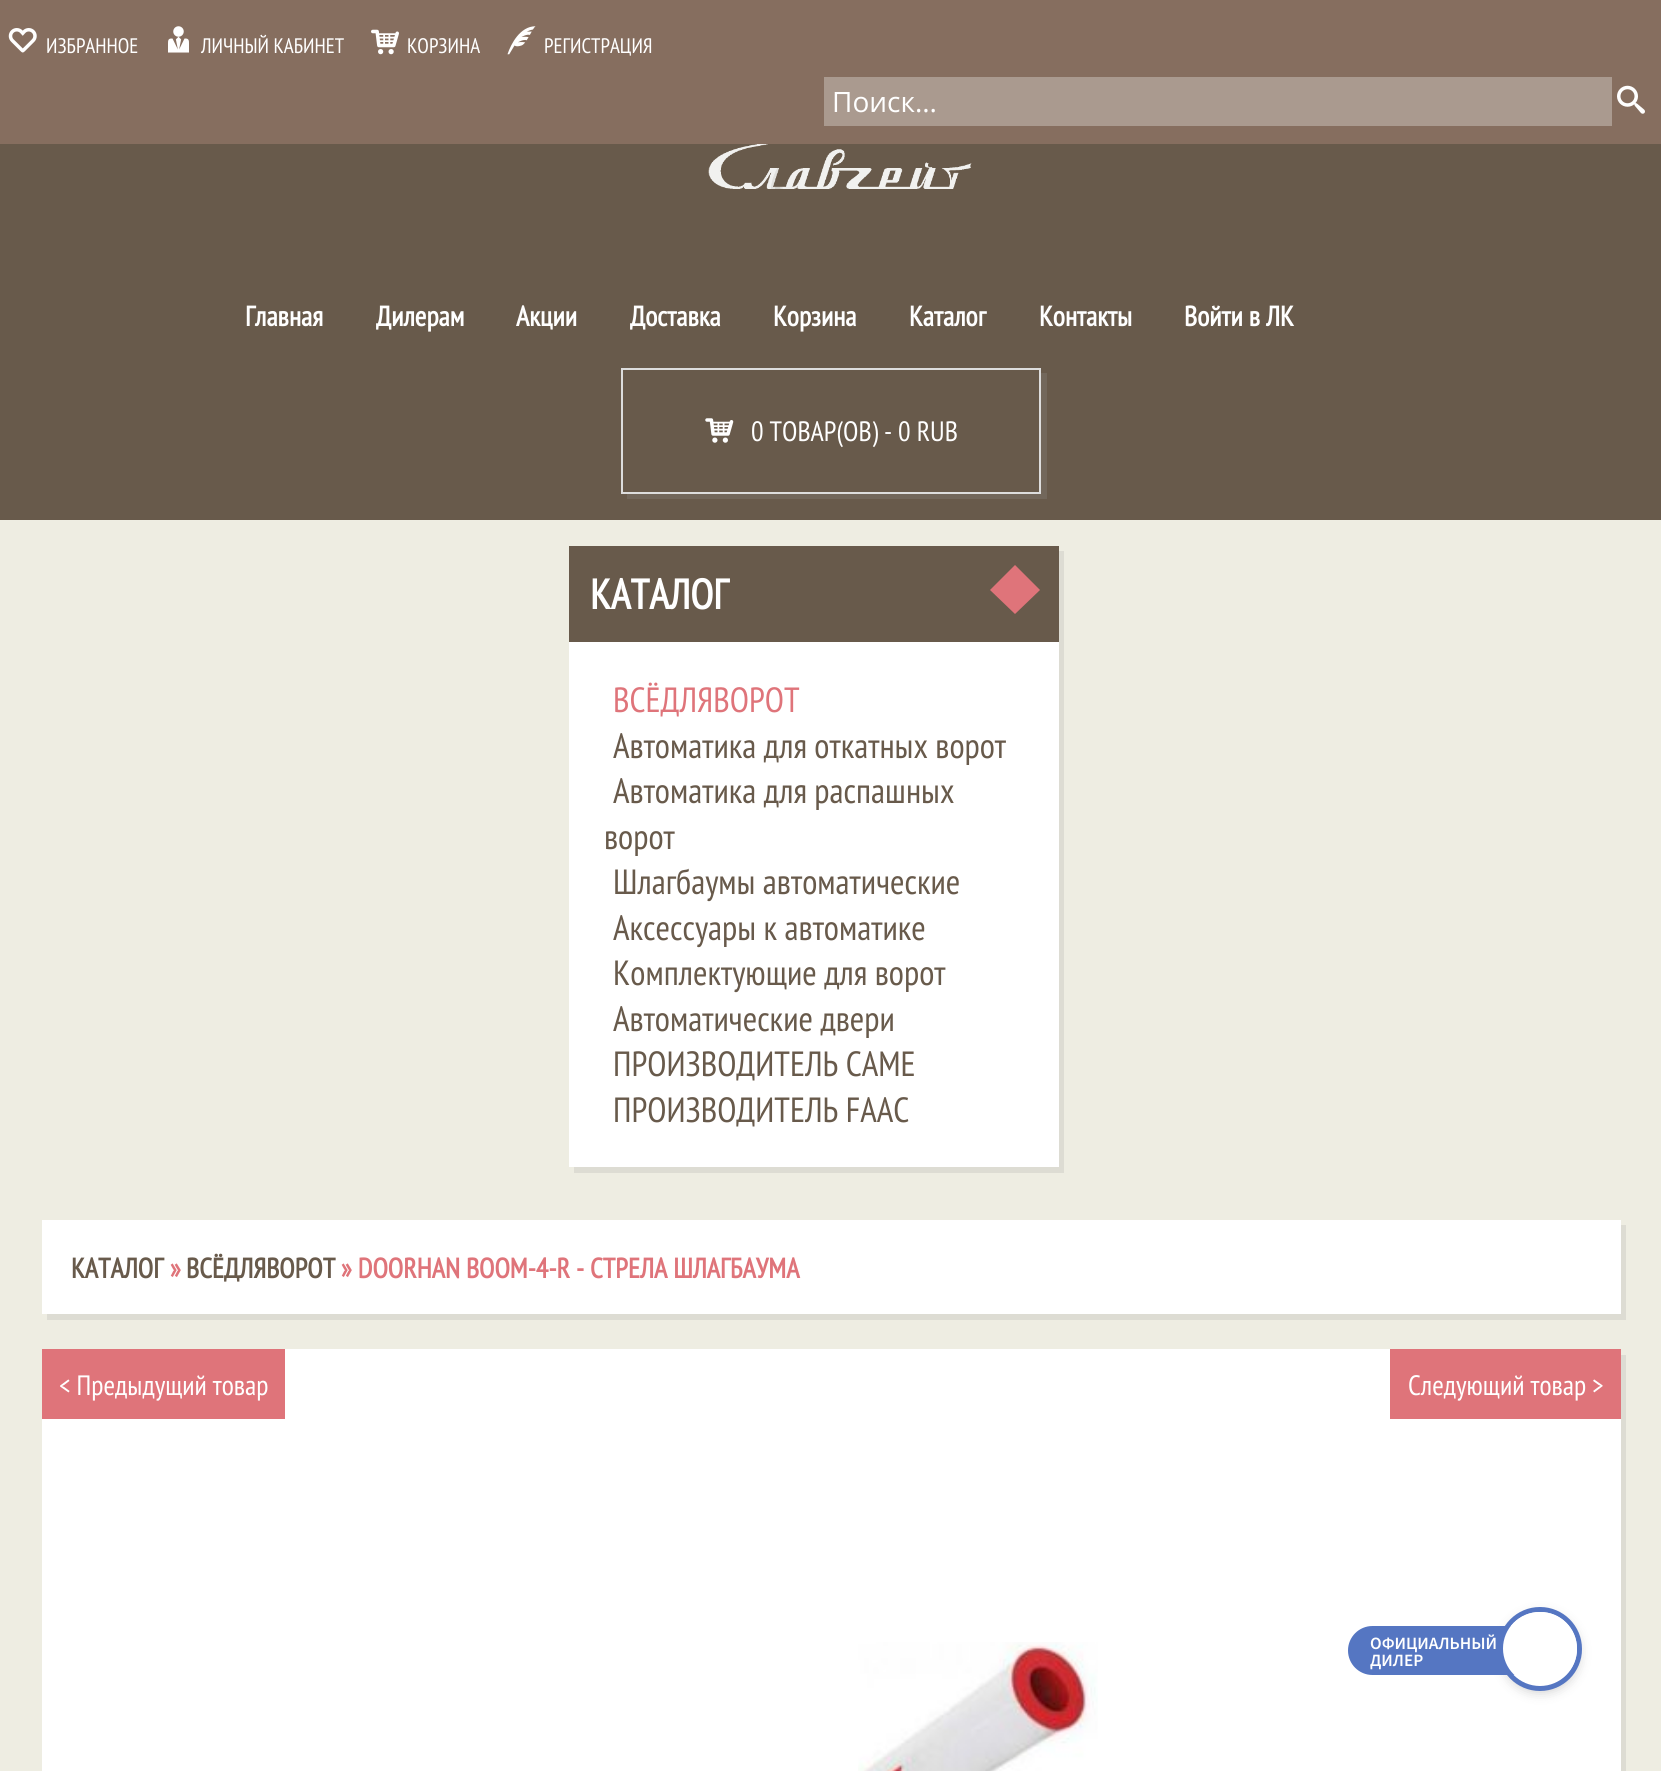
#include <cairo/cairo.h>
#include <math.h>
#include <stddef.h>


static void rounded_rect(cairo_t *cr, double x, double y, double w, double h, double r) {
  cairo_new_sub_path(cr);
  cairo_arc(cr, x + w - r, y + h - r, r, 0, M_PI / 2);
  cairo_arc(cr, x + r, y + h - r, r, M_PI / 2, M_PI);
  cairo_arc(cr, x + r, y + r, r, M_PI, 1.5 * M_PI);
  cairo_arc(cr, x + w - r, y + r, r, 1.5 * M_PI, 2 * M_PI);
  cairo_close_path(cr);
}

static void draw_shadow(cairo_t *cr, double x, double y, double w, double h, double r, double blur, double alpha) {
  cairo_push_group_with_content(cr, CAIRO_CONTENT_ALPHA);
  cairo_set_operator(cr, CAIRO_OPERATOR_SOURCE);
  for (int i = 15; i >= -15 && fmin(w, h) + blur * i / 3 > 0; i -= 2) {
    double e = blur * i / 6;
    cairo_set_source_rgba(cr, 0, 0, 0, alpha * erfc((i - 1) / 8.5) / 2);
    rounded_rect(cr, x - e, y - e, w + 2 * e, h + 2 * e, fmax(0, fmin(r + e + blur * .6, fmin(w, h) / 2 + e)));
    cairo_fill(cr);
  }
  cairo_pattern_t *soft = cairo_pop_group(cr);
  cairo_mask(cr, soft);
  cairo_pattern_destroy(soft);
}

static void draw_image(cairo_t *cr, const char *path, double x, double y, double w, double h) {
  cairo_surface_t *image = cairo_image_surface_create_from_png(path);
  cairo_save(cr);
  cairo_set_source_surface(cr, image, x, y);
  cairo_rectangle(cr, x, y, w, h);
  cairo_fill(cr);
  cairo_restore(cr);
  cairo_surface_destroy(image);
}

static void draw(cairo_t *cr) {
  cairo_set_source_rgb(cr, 104 / 255.0, 90 / 255.0, 75 / 255.0);
  cairo_paint(cr);
  cairo_set_source_rgb(cr, 134 / 255.0, 110 / 255.0, 95 / 255.0);
  cairo_rectangle(cr, 0, 0, 1661, 144);
  cairo_fill(cr);
  draw_image(cr, "images/1.png", 8, 28, 29, 25);
  draw_image(cr, "images/2.png", 168, 26, 21, 27);
  draw_image(cr, "images/3.png", 371, 29, 28, 26);
  draw_image(cr, "images/4.png", 507, 26, 29, 29);
  cairo_set_source_rgb(cr, 170 / 255.0, 154 / 255.0, 143 / 255.0);
  cairo_rectangle(cr, 824, 77, 788, 49);
  cairo_fill(cr);
  draw_image(cr, "images/5.png", 1617, 85, 28, 29);
  draw_image(cr, "images/6.png", 708, 144, 264, 45);
  cairo_set_source_rgb(cr, 114 / 255.0, 103 / 255.0, 91 / 255.0);
  cairo_new_path(cr);
  cairo_move_to(cr, 627, 494);
  cairo_line_to(cr, 627, 499);
  cairo_line_to(cr, 1047, 499);
  cairo_line_to(cr, 1047, 373);
  cairo_line_to(cr, 1041, 373);
  cairo_line_to(cr, 1041, 494);
  cairo_close_path(cr);
  cairo_fill(cr);
  cairo_rectangle(cr, 622, 369, 418, 124);
  cairo_set_source_rgb(cr, 221 / 255.0, 221 / 255.0, 221 / 255.0);
  cairo_stroke(cr);
  draw_image(cr, "images/7.png", 705, 418, 29, 25);
  cairo_set_source_rgb(cr, 238 / 255.0, 237 / 255.0, 226 / 255.0);
  cairo_rectangle(cr, 0, 520, 1661, 1251);
  cairo_fill(cr);
  cairo_set_source_rgb(cr, 221 / 255.0, 220 / 255.0, 211 / 255.0);
  cairo_new_path(cr);
  cairo_move_to(cr, 574, 1167);
  cairo_line_to(cr, 574, 1173);
  cairo_line_to(cr, 1064, 1173);
  cairo_line_to(cr, 1064, 551);
  cairo_line_to(cr, 1059, 551);
  cairo_line_to(cr, 1059, 1167);
  cairo_close_path(cr);
  cairo_fill(cr);
  cairo_set_source_rgb(cr, 1, 1, 1);
  cairo_rectangle(cr, 569, 642, 490, 525);
  cairo_fill(cr);
  cairo_set_source_rgb(cr, 104 / 255.0, 90 / 255.0, 75 / 255.0);
  cairo_rectangle(cr, 569, 546, 490, 96);
  cairo_fill(cr);
  cairo_set_source_rgb(cr, 223 / 255.0, 116 / 255.0, 122 / 255.0);
  cairo_new_path(cr);
  cairo_move_to(cr, 1015, 565);
  cairo_line_to(cr, 1040, 590);
  cairo_line_to(cr, 1015, 614);
  cairo_line_to(cr, 990, 590);
  cairo_close_path(cr);
  cairo_fill(cr);
  cairo_set_source_rgb(cr, 221 / 255.0, 220 / 255.0, 211 / 255.0);
  cairo_new_path(cr);
  cairo_move_to(cr, 47, 1314);
  cairo_line_to(cr, 47, 1320);
  cairo_line_to(cr, 1626, 1320);
  cairo_line_to(cr, 1626, 1225);
  cairo_line_to(cr, 1620, 1225);
  cairo_line_to(cr, 1620, 1314);
  cairo_close_path(cr);
  cairo_fill(cr);
  cairo_set_source_rgb(cr, 1, 1, 1);
  cairo_rectangle(cr, 42, 1220, 1579, 94);
  cairo_fill(cr);
  cairo_set_source_rgb(cr, 221 / 255.0, 220 / 255.0, 211 / 255.0);
  cairo_new_path(cr);
  cairo_move_to(cr, 47, 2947);
  cairo_line_to(cr, 47, 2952);
  cairo_line_to(cr, 1626, 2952);
  cairo_line_to(cr, 1626, 1355);
  cairo_line_to(cr, 1620, 1355);
  cairo_line_to(cr, 1620, 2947);
  cairo_close_path(cr);
  cairo_fill(cr);
  cairo_set_source_rgb(cr, 1, 1, 1);
  cairo_rectangle(cr, 42, 1349, 1579, 422);
  cairo_fill(cr);
  cairo_set_source_rgb(cr, 223 / 255.0, 116 / 255.0, 122 / 255.0);
  cairo_rectangle(cr, 42, 1349, 243, 70);
  cairo_fill(cr);
  cairo_rectangle(cr, 1390, 1349, 231, 70);
  cairo_fill(cr);
  draw_image(cr, "images/8.png", 858, 1642, 240, 129);
  cairo_set_source_rgb(cr, 0, 0, 0);
  draw_shadow(cr, 1502, 1614, 77, 78, 38.5, 6, 0.2);
  cairo_set_source_rgb(cr, 1, 1, 1);
  cairo_arc(cr, 1540, 1649, 39.5, 0, 2 * M_PI);
  cairo_fill_preserve(cr);
  cairo_set_source_rgb(cr, 85 / 255.0, 118 / 255.0, 194 / 255.0);
  cairo_set_line_width(cr, 5);
  cairo_stroke(cr);
  rounded_rect(cr, 1348, 1626, 215, 49, 24.5);
  cairo_fill(cr);
  cairo_set_source_rgb(cr, 1, 1, 1);
  rounded_rect(cr, 1503, 1612, 74, 73, 36.5);
  cairo_fill(cr);
  cairo_select_font_face(cr, "PT Sans Narrow", CAIRO_FONT_SLANT_NORMAL, CAIRO_FONT_WEIGHT_NORMAL);
  cairo_set_font_size(cr, 21);
  cairo_move_to(cr, 46, 53);
  cairo_show_text(cr, "ИЗБРАННОЕ");
  cairo_move_to(cr, 201, 53);
  cairo_show_text(cr, "ЛИЧНЫЙ КАБИНЕТ");
  cairo_move_to(cr, 407, 53);
  cairo_show_text(cr, "КОРЗИНА");
  cairo_move_to(cr, 544, 53);
  cairo_show_text(cr, "РЕГИСТРАЦИЯ");
  cairo_select_font_face(cr, "Open Sans", CAIRO_FONT_SLANT_NORMAL, CAIRO_FONT_WEIGHT_NORMAL);
  cairo_set_font_size(cr, 28);
  cairo_move_to(cr, 832, 112);
  cairo_show_text(cr, "Поиск...");
  cairo_select_font_face(cr, "PT Sans Narrow", CAIRO_FONT_SLANT_NORMAL, CAIRO_FONT_WEIGHT_BOLD);
  cairo_move_to(cr, 245, 326);
  cairo_show_text(cr, "Главная");
  cairo_move_to(cr, 376, 326);
  cairo_show_text(cr, "Дилерам");
  cairo_move_to(cr, 516, 326);
  cairo_show_text(cr, "Акции");
  cairo_move_to(cr, 630, 326);
  cairo_show_text(cr, "Доставка");
  cairo_move_to(cr, 773, 326);
  cairo_show_text(cr, "Корзина");
  cairo_move_to(cr, 909, 326);
  cairo_show_text(cr, "Каталог");
  cairo_move_to(cr, 1039, 326);
  cairo_show_text(cr, "Контакты");
  cairo_move_to(cr, 1184, 326);
  cairo_show_text(cr, "Войти в ЛК");
  cairo_select_font_face(cr, "PT Sans Narrow", CAIRO_FONT_SLANT_NORMAL, CAIRO_FONT_WEIGHT_NORMAL);
  cairo_move_to(cr, 751, 441);
  cairo_show_text(cr, "0 ТОВАР(ОВ) - 0 RUB");
  cairo_select_font_face(cr, "PT Sans Narrow", CAIRO_FONT_SLANT_NORMAL, CAIRO_FONT_WEIGHT_BOLD);
  cairo_set_font_size(cr, 42);
  cairo_move_to(cr, 590, 609);
  cairo_show_text(cr, "КАТАЛОГ");
  cairo_select_font_face(cr, "PT Sans Narrow", CAIRO_FONT_SLANT_NORMAL, CAIRO_FONT_WEIGHT_NORMAL);
  cairo_set_font_size(cr, 35);
  cairo_set_source_rgb(cr, 223 / 255.0, 116 / 255.0, 122 / 255.0);
  cairo_move_to(cr, 613, 712);
  cairo_show_text(cr, "ВСЁДЛЯВОРОТ");
  cairo_set_source_rgb(cr, 104 / 255.0, 90 / 255.0, 75 / 255.0);
  cairo_move_to(cr, 613, 758);
  cairo_show_text(cr, "Автоматика для откатных ворот");
  cairo_move_to(cr, 613, 803);
  cairo_show_text(cr, "Автоматика для распашных");
  cairo_move_to(cr, 604, 849);
  cairo_show_text(cr, "ворот");
  cairo_move_to(cr, 613, 894);
  cairo_show_text(cr, "Шлагбаумы автоматические");
  cairo_move_to(cr, 613, 940);
  cairo_show_text(cr, "Аксессуары к автоматике");
  cairo_move_to(cr, 613, 985);
  cairo_show_text(cr, "Комплектующие для ворот");
  cairo_move_to(cr, 613, 1031);
  cairo_show_text(cr, "Автоматические двери");
  cairo_move_to(cr, 613, 1076);
  cairo_show_text(cr, "ПРОИЗВОДИТЕЛЬ CAME");
  cairo_move_to(cr, 613, 1122);
  cairo_show_text(cr, "ПРОИЗВОДИТЕЛЬ FAAC");
  cairo_select_font_face(cr, "PT Sans Narrow", CAIRO_FONT_SLANT_NORMAL, CAIRO_FONT_WEIGHT_BOLD);
  cairo_set_font_size(cr, 28);
  cairo_move_to(cr, 71, 1278);
  cairo_show_text(cr, "КАТАЛОГ");
  cairo_set_source_rgb(cr, 223 / 255.0, 116 / 255.0, 122 / 255.0);
  cairo_move_to(cr, 170, 1278);
  cairo_show_text(cr, "»");
  cairo_set_source_rgb(cr, 104 / 255.0, 90 / 255.0, 75 / 255.0);
  cairo_move_to(cr, 186, 1278);
  cairo_show_text(cr, "ВСЁДЛЯВОРОТ");
  cairo_set_source_rgb(cr, 223 / 255.0, 116 / 255.0, 122 / 255.0);
  cairo_move_to(cr, 341, 1278);
  cairo_show_text(cr, "» DOORHAN BOOM-4-R - СТРЕЛА ШЛАГБАУМА");
  cairo_select_font_face(cr, "PT Sans Narrow", CAIRO_FONT_SLANT_NORMAL, CAIRO_FONT_WEIGHT_NORMAL);
  cairo_set_source_rgb(cr, 1, 1, 1);
  cairo_move_to(cr, 59, 1395);
  cairo_show_text(cr, "< Предыдущий товар");
  cairo_move_to(cr, 1408, 1395);
  cairo_show_text(cr, "Следующий товар >");
  cairo_select_font_face(cr, "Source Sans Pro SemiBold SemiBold", CAIRO_FONT_SLANT_NORMAL, CAIRO_FONT_WEIGHT_NORMAL);
  cairo_set_font_size(cr, 17.25);
  cairo_move_to(cr, 1370, 1649);
  cairo_show_text(cr, "ОФИЦИАЛЬНЫЙ");
  cairo_move_to(cr, 1370, 1666);
  cairo_show_text(cr, "ДИЛЕР");
}

int main(void) {
  cairo_surface_t *surface = cairo_image_surface_create(CAIRO_FORMAT_RGB24, 1661, 1771);
  cairo_t *cr = cairo_create(surface);
  cairo_font_options_t *options = cairo_font_options_create();
  cairo_font_options_set_hint_metrics(options, CAIRO_HINT_METRICS_OFF);
  cairo_font_options_set_hint_style(options, CAIRO_HINT_STYLE_NONE);
  cairo_set_font_options(cr, options);
  cairo_set_miter_limit(cr, 4);
  draw(cr);
  cairo_surface_write_to_png(surface, "out.png");
  cairo_font_options_destroy(options);
  cairo_destroy(cr);
  cairo_surface_destroy(surface);
  return 0;
}
